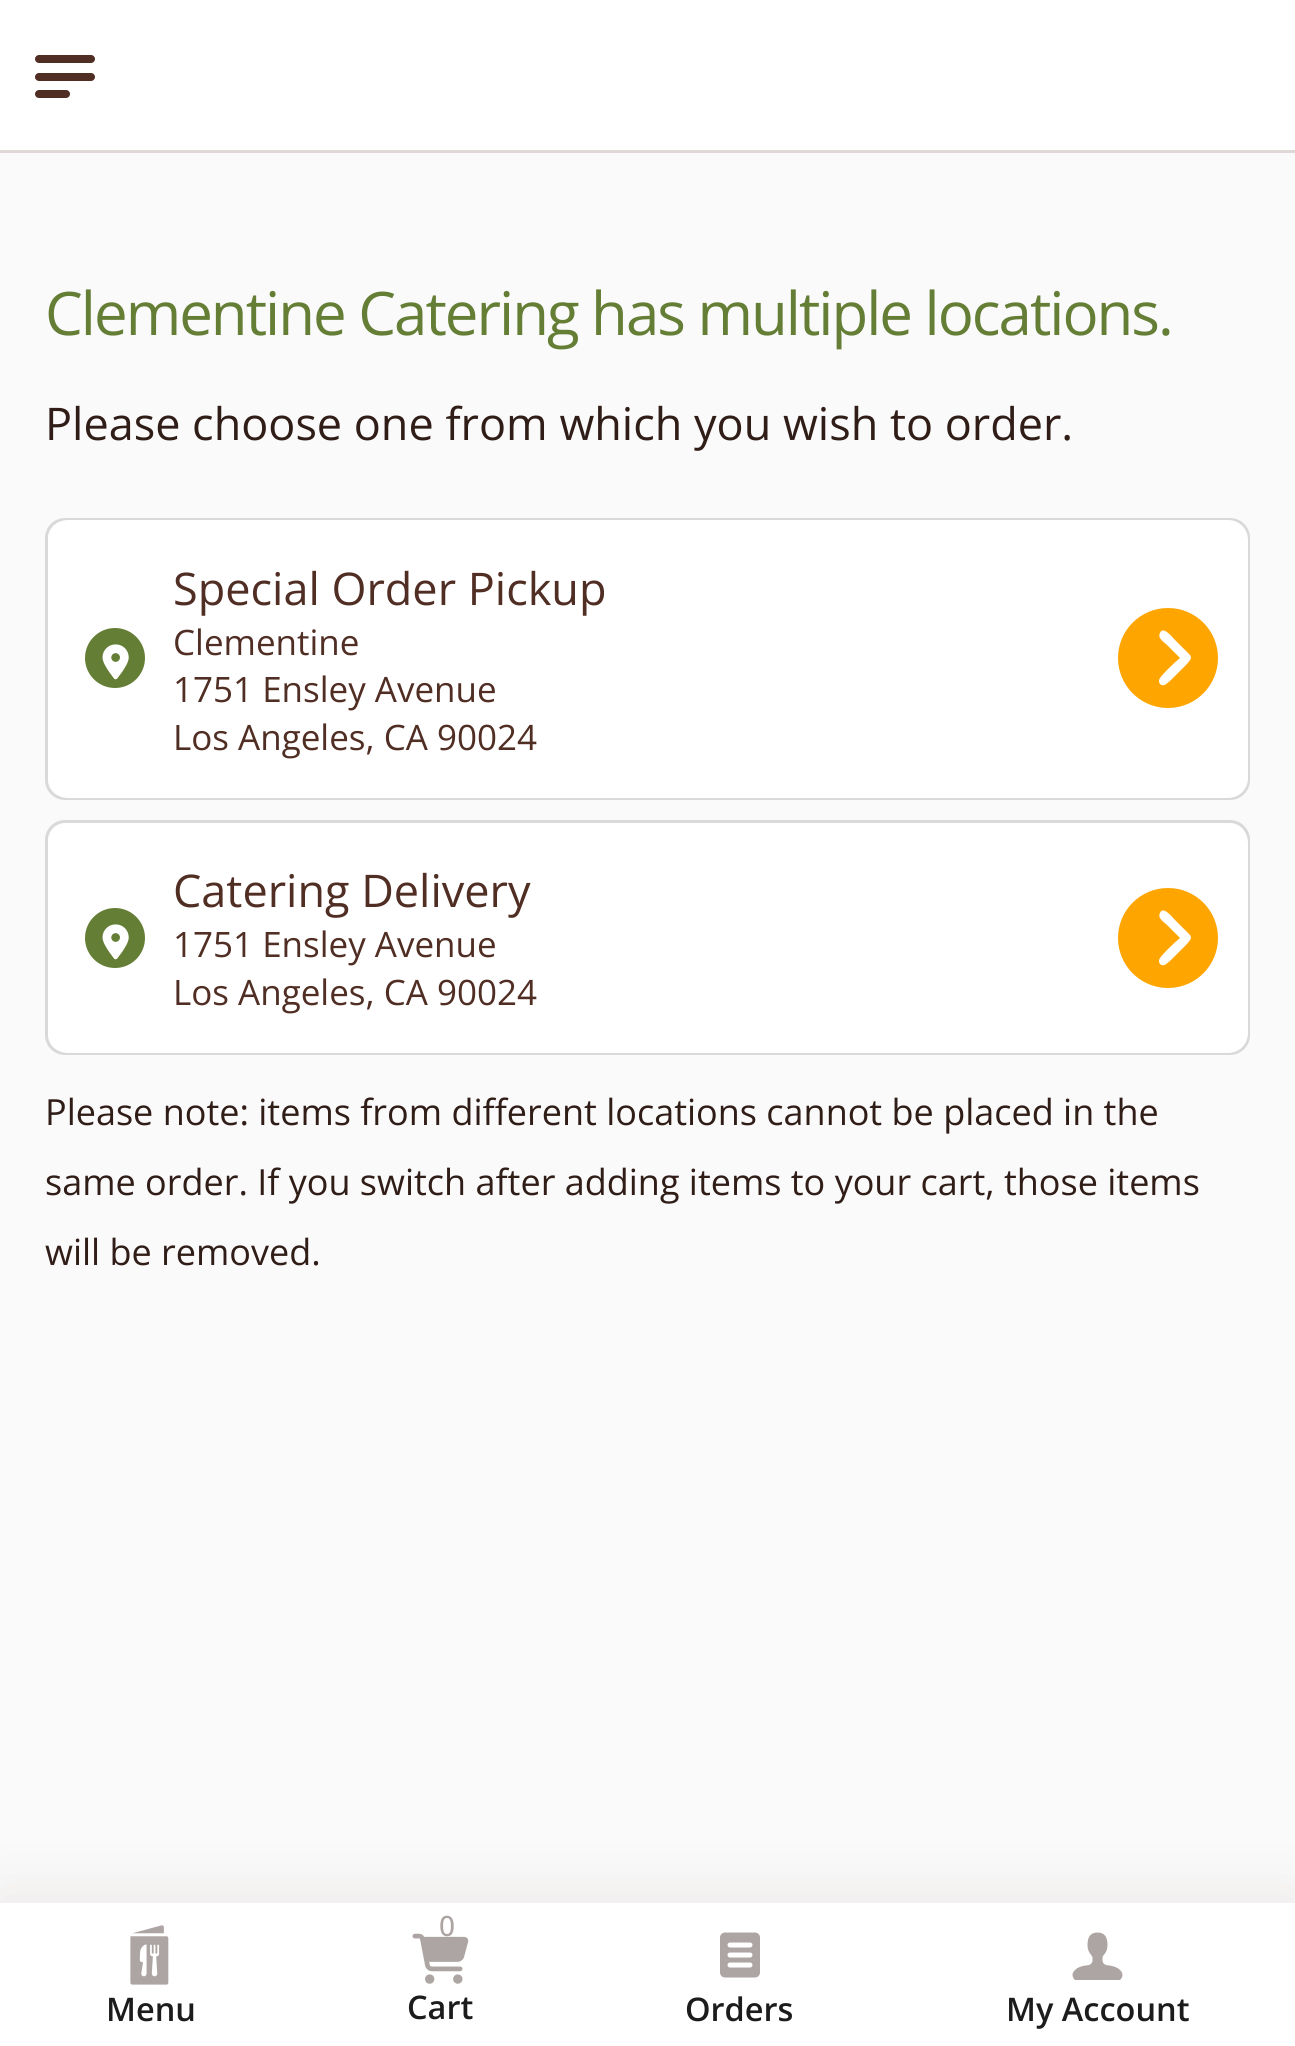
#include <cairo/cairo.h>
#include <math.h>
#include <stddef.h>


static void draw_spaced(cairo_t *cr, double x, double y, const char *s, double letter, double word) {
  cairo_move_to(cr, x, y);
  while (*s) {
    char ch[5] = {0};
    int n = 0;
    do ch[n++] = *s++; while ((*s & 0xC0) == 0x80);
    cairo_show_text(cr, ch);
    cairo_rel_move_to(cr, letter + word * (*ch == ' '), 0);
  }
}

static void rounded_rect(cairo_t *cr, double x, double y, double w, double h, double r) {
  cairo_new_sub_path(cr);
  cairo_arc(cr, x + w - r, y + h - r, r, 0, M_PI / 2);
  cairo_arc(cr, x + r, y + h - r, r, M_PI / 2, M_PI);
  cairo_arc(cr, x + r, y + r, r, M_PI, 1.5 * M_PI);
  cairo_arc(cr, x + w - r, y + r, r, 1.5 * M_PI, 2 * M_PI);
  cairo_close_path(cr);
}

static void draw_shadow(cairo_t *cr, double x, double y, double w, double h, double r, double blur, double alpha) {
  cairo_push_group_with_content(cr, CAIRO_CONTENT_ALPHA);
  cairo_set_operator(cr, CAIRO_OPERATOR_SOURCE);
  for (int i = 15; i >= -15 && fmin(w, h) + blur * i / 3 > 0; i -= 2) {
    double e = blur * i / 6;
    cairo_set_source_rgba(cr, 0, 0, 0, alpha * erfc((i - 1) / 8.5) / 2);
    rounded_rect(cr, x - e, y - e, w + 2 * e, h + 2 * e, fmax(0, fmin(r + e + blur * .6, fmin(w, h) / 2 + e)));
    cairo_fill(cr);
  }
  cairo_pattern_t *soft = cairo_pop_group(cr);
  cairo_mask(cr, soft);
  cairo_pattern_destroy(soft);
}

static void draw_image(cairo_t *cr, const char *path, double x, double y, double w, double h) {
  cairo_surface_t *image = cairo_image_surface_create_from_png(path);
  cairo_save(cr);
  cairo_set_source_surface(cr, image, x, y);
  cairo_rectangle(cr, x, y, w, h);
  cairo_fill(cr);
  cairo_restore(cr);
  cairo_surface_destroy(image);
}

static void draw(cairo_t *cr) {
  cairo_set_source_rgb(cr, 250 / 255.0, 250 / 255.0, 250 / 255.0);
  cairo_paint(cr);
  cairo_set_source_rgb(cr, 223 / 255.0, 216 / 255.0, 215 / 255.0);
  cairo_rectangle(cr, 0, 150, 1295, 3);
  cairo_fill(cr);
  cairo_set_source_rgb(cr, 1, 1, 1);
  cairo_rectangle(cr, 0, 0, 1295, 150);
  cairo_fill(cr);
  cairo_set_source_rgb(cr, 80 / 255.0, 46 / 255.0, 36 / 255.0);
  rounded_rect(cr, 35, 55, 60, 8, 4);
  cairo_fill(cr);
  rounded_rect(cr, 35, 73, 60, 8, 4);
  cairo_fill(cr);
  rounded_rect(cr, 35, 90, 35, 8, 4);
  cairo_fill(cr);
  rounded_rect(cr, 46.5, 519.5, 1202, 279, 18.5);
  cairo_set_source_rgb(cr, 217 / 255.0, 217 / 255.0, 217 / 255.0);
  cairo_set_line_width(cr, 3);
  cairo_stroke(cr);
  cairo_set_source_rgb(cr, 1, 1, 1);
  rounded_rect(cr, 48, 520, 1200, 278, 20);
  cairo_fill(cr);
  cairo_set_source_rgb(cr, 101 / 255.0, 126 / 255.0, 54 / 255.0);
  cairo_arc(cr, 115, 658, 30, 0, 2 * M_PI);
  cairo_fill(cr);
  draw_image(cr, "images/1.png", 102, 644, 27, 36);
  cairo_set_source_rgb(cr, 1, 165 / 255.0, 0);
  cairo_arc(cr, 1168, 658, 50, 0, 2 * M_PI);
  cairo_fill(cr);
  cairo_set_source_rgb(cr, 1, 1, 1);
  cairo_new_path(cr);
  cairo_move_to(cr, 1190, 655);
  cairo_curve_to(cr, 1193, 659, 1188, 662, 1186, 665);
  cairo_line_to(cr, 1171, 680);
  cairo_curve_to(cr, 1168, 682, 1164, 688, 1160, 684);
  cairo_curve_to(cr, 1159, 683, 1159, 681, 1159, 680);
  cairo_curve_to(cr, 1160, 676, 1176, 661, 1180, 658);
  cairo_line_to(cr, 1167, 645);
  cairo_curve_to(cr, 1164, 642, 1157, 638, 1160, 633);
  cairo_curve_to(cr, 1163, 625, 1173, 638, 1174, 639);
  cairo_close_path(cr);
  cairo_fill(cr);
  rounded_rect(cr, 46.5, 821.5, 1202, 232, 18.5);
  cairo_set_source_rgb(cr, 217 / 255.0, 217 / 255.0, 217 / 255.0);
  cairo_stroke(cr);
  cairo_set_source_rgb(cr, 1, 1, 1);
  rounded_rect(cr, 48, 823, 1200, 230, 20);
  cairo_fill(cr);
  cairo_set_source_rgb(cr, 101 / 255.0, 126 / 255.0, 54 / 255.0);
  cairo_arc(cr, 115, 938, 30, 0, 2 * M_PI);
  cairo_fill(cr);
  draw_image(cr, "images/1.png", 102, 924, 27, 36);
  cairo_set_source_rgb(cr, 1, 165 / 255.0, 0);
  cairo_arc(cr, 1168, 938, 50, 0, 2 * M_PI);
  cairo_fill(cr);
  cairo_set_source_rgb(cr, 1, 1, 1);
  cairo_new_path(cr);
  cairo_move_to(cr, 1190, 935);
  cairo_curve_to(cr, 1193, 939, 1188, 942, 1186, 945);
  cairo_line_to(cr, 1171, 960);
  cairo_curve_to(cr, 1168, 962, 1164, 968, 1160, 964);
  cairo_curve_to(cr, 1159, 963, 1159, 961, 1159, 960);
  cairo_curve_to(cr, 1160, 956, 1176, 941, 1180, 938);
  cairo_line_to(cr, 1167, 925);
  cairo_curve_to(cr, 1164, 922, 1157, 918, 1160, 913);
  cairo_curve_to(cr, 1163, 905, 1173, 918, 1174, 919);
  cairo_close_path(cr);
  cairo_fill(cr);
  cairo_set_source_rgb(cr, 80 / 255.0, 46 / 255.0, 36 / 255.0);
  draw_shadow(cr, 0, 1898, 1295, 145, 0, 30, 0.1);
  cairo_set_source_rgb(cr, 1, 1, 1);
  cairo_rectangle(cr, 0, 1903, 1295, 143);
  cairo_fill(cr);
  draw_image(cr, "images/2.png", 130, 1925, 39, 60);
  draw_image(cr, "images/3.png", 412, 1933, 57, 51);
  draw_image(cr, "images/4.png", 720, 1932, 40, 46);
  draw_image(cr, "images/5.png", 1072, 1932, 51, 48);
  cairo_select_font_face(cr, "Open Sans", CAIRO_FONT_SLANT_NORMAL, CAIRO_FONT_WEIGHT_NORMAL);
  cairo_set_font_size(cr, 60);
  cairo_set_source_rgb(cr, 101 / 255.0, 126 / 255.0, 54 / 255.0);
  draw_spaced(cr, 45, 335, "Clementine Catering has multiple locations.", -2, 0);
  cairo_set_font_size(cr, 45);
  cairo_set_source_rgb(cr, 48 / 255.0, 29 / 255.0, 23 / 255.0);
  cairo_move_to(cr, 45, 440);
  cairo_show_text(cr, "Please choose one from which you wish to order.");
  cairo_set_source_rgb(cr, 80 / 255.0, 46 / 255.0, 36 / 255.0);
  cairo_move_to(cr, 173, 605);
  cairo_show_text(cr, "Special Order Pickup");
  cairo_set_font_size(cr, 35);
  cairo_move_to(cr, 173, 655);
  cairo_show_text(cr, "Clementine");
  cairo_move_to(cr, 173, 702);
  cairo_show_text(cr, "1751 Ensley Avenue");
  cairo_move_to(cr, 173, 750);
  cairo_show_text(cr, "Los Angeles, CA 90024");
  cairo_set_font_size(cr, 45);
  cairo_move_to(cr, 173, 907);
  cairo_show_text(cr, "Catering Delivery");
  cairo_set_font_size(cr, 35);
  cairo_move_to(cr, 173, 957);
  cairo_show_text(cr, "1751 Ensley Avenue");
  cairo_move_to(cr, 173, 1005);
  cairo_show_text(cr, "Los Angeles, CA 90024");
  cairo_set_font_size(cr, 36);
  cairo_set_source_rgb(cr, 48 / 255.0, 29 / 255.0, 23 / 255.0);
  cairo_move_to(cr, 45, 1125);
  cairo_show_text(cr, "Please note: items from different locations cannot be placed in the");
  cairo_move_to(cr, 45, 1195);
  cairo_show_text(cr, "same order. If you switch after adding items to your cart, those items");
  cairo_move_to(cr, 45, 1265);
  cairo_show_text(cr, "will be removed.");
  cairo_select_font_face(cr, "Open Sans SemiBold", CAIRO_FONT_SLANT_NORMAL, CAIRO_FONT_WEIGHT_NORMAL);
  cairo_set_font_size(cr, 32.5);
  cairo_set_source_rgb(cr, 28 / 255.0, 28 / 255.0, 28 / 255.0);
  cairo_move_to(cr, 106, 2021);
  cairo_show_text(cr, "Menu");
  cairo_select_font_face(cr, "Open Sans Medium", CAIRO_FONT_SLANT_NORMAL, CAIRO_FONT_WEIGHT_NORMAL);
  cairo_set_font_size(cr, 28);
  cairo_set_source_rgb(cr, 173 / 255.0, 165 / 255.0, 163 / 255.0);
  cairo_move_to(cr, 439, 1936);
  cairo_show_text(cr, "0");
  cairo_select_font_face(cr, "Open Sans SemiBold", CAIRO_FONT_SLANT_NORMAL, CAIRO_FONT_WEIGHT_NORMAL);
  cairo_set_font_size(cr, 32.5);
  cairo_set_source_rgb(cr, 28 / 255.0, 28 / 255.0, 28 / 255.0);
  cairo_move_to(cr, 407, 2019);
  cairo_show_text(cr, "Cart");
  cairo_move_to(cr, 685, 2021);
  cairo_show_text(cr, "Orders");
  cairo_move_to(cr, 1006, 2021);
  cairo_show_text(cr, "My Account");
}

int main(void) {
  cairo_surface_t *surface = cairo_image_surface_create(CAIRO_FORMAT_RGB24, 1295, 2046);
  cairo_t *cr = cairo_create(surface);
  cairo_font_options_t *options = cairo_font_options_create();
  cairo_font_options_set_hint_metrics(options, CAIRO_HINT_METRICS_OFF);
  cairo_font_options_set_hint_style(options, CAIRO_HINT_STYLE_NONE);
  cairo_set_font_options(cr, options);
  cairo_set_miter_limit(cr, 4);
  draw(cr);
  cairo_surface_write_to_png(surface, "out.png");
  cairo_font_options_destroy(options);
  cairo_destroy(cr);
  cairo_surface_destroy(surface);
  return 0;
}
